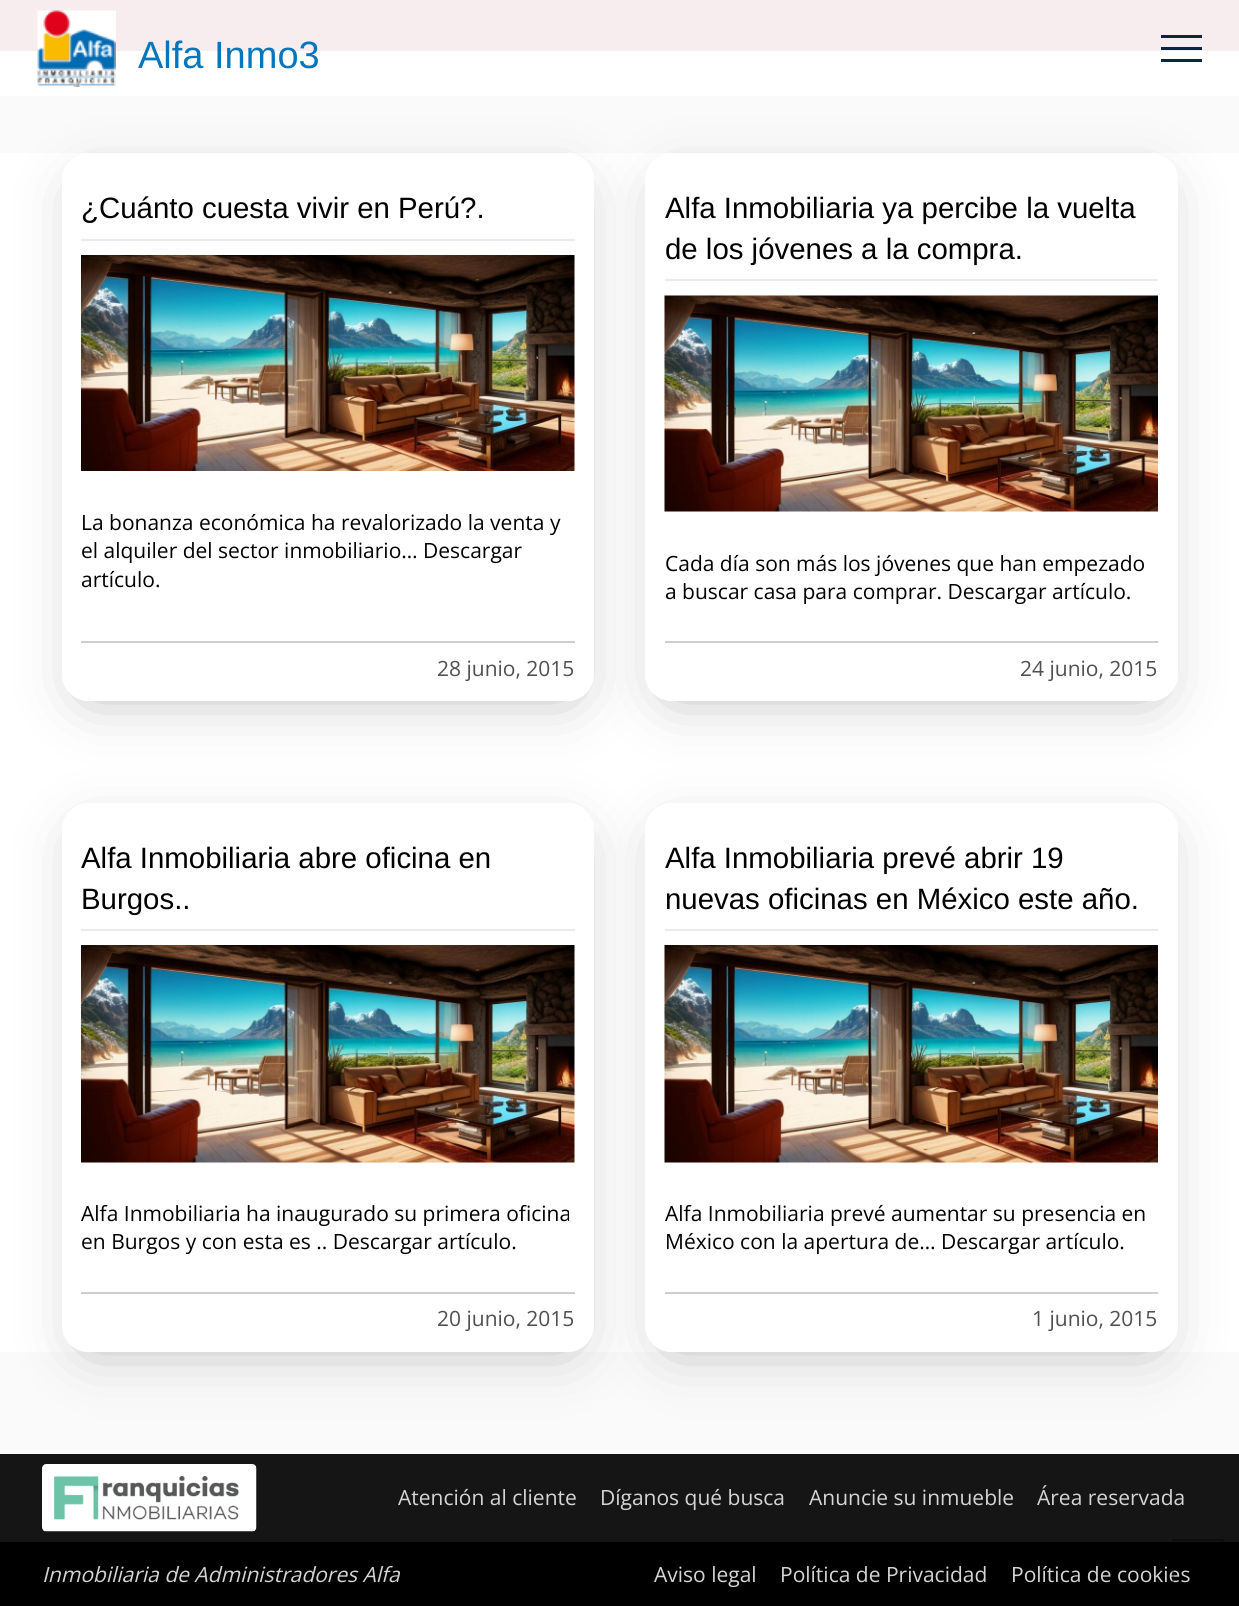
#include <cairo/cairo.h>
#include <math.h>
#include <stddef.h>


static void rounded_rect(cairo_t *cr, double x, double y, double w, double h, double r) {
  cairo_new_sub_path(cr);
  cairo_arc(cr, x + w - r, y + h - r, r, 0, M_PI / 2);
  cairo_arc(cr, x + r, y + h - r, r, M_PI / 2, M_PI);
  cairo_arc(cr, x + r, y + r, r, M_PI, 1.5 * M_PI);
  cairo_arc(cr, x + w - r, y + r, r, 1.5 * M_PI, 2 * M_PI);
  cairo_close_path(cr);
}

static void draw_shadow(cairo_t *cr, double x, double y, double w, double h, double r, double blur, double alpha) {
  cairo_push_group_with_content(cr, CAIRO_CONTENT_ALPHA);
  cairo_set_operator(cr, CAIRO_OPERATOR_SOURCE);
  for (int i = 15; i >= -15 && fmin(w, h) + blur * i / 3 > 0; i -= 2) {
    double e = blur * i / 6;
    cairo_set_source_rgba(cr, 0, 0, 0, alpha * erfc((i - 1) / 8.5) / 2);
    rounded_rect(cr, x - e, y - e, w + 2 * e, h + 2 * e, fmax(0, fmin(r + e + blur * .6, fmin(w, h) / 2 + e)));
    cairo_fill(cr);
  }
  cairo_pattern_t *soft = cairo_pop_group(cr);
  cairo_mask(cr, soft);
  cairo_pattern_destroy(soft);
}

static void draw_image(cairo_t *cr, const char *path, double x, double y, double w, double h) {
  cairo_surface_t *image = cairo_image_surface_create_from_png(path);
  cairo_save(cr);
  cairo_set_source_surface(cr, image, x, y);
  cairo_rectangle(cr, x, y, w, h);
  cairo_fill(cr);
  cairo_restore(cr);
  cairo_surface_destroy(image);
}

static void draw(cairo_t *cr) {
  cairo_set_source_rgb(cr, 250 / 255.0, 250 / 255.0, 250 / 255.0);
  cairo_paint(cr);
  cairo_set_source_rgb(cr, 1, 1, 1);
  cairo_rectangle(cr, 0, 51, 1239, 45);
  cairo_fill(cr);
  cairo_set_source_rgb(cr, 247 / 255.0, 237 / 255.0, 238 / 255.0);
  cairo_rectangle(cr, 0, 0, 1239, 51);
  cairo_fill(cr);
  draw_image(cr, "images/1.png", 37, 10, 79, 77);
  cairo_set_source_rgb(cr, 10 / 255.0, 37 / 255.0, 64 / 255.0);
  cairo_rectangle(cr, 1161, 35, 41, 3);
  cairo_fill(cr);
  cairo_rectangle(cr, 1161, 47, 41, 3);
  cairo_fill(cr);
  cairo_rectangle(cr, 1161, 59, 41, 3);
  cairo_fill(cr);
  cairo_set_source_rgb(cr, 1, 1, 1);
  cairo_rectangle(cr, 0, 153, 1239, 1199);
  cairo_fill(cr);
  cairo_save(cr);
  cairo_set_fill_rule(cr, CAIRO_FILL_RULE_EVEN_ODD);
  cairo_new_path(cr);
  cairo_move_to(cr, 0, 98);
  cairo_line_to(cr, 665, 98);
  cairo_line_to(cr, 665, 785);
  cairo_line_to(cr, 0, 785);
  cairo_close_path(cr);
  cairo_move_to(cr, 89, 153);
  cairo_line_to(cr, 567, 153);
  cairo_curve_to(cr, 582, 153, 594, 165, 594, 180);
  cairo_line_to(cr, 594, 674);
  cairo_curve_to(cr, 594, 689, 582, 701, 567, 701);
  cairo_line_to(cr, 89, 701);
  cairo_curve_to(cr, 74, 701, 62, 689, 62, 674);
  cairo_line_to(cr, 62, 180);
  cairo_curve_to(cr, 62, 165, 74, 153, 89, 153);
  cairo_close_path(cr);
  cairo_clip(cr);
  cairo_set_source_rgb(cr, 169 / 255.0, 169 / 255.0, 169 / 255.0);
  draw_shadow(cr, 89, 194, 480, 495, 1, 31.5, 1);
  cairo_restore(cr);
  cairo_set_source_rgb(cr, 235 / 255.0, 235 / 255.0, 235 / 255.0);
  cairo_rectangle(cr, 81, 239, 494, 2);
  cairo_fill(cr);
  draw_image(cr, "images/2.png", 81, 255, 494, 216);
  cairo_set_source_rgb(cr, 206 / 255.0, 206 / 255.0, 206 / 255.0);
  cairo_rectangle(cr, 81, 641, 494, 2);
  cairo_fill(cr);
  cairo_save(cr);
  cairo_set_fill_rule(cr, CAIRO_FILL_RULE_EVEN_ODD);
  cairo_new_path(cr);
  cairo_move_to(cr, 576, 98);
  cairo_line_to(cr, 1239, 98);
  cairo_line_to(cr, 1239, 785);
  cairo_line_to(cr, 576, 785);
  cairo_close_path(cr);
  cairo_move_to(cr, 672, 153);
  cairo_line_to(cr, 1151, 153);
  cairo_curve_to(cr, 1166, 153, 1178, 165, 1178, 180);
  cairo_line_to(cr, 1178, 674);
  cairo_curve_to(cr, 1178, 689, 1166, 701, 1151, 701);
  cairo_line_to(cr, 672, 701);
  cairo_curve_to(cr, 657, 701, 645, 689, 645, 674);
  cairo_line_to(cr, 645, 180);
  cairo_curve_to(cr, 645, 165, 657, 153, 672, 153);
  cairo_close_path(cr);
  cairo_clip(cr);
  cairo_set_source_rgb(cr, 169 / 255.0, 169 / 255.0, 169 / 255.0);
  draw_shadow(cr, 672, 194, 480, 495, 1, 31.5, 1);
  cairo_restore(cr);
  cairo_set_source_rgb(cr, 235 / 255.0, 235 / 255.0, 235 / 255.0);
  cairo_rectangle(cr, 665, 279, 493, 2);
  cairo_fill(cr);
  draw_image(cr, "images/3.png", 664, 295, 494, 217);
  cairo_set_source_rgb(cr, 206 / 255.0, 206 / 255.0, 206 / 255.0);
  cairo_rectangle(cr, 665, 641, 493, 2);
  cairo_fill(cr);
  cairo_save(cr);
  cairo_set_fill_rule(cr, CAIRO_FILL_RULE_EVEN_ODD);
  cairo_new_path(cr);
  cairo_move_to(cr, 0, 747);
  cairo_line_to(cr, 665, 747);
  cairo_line_to(cr, 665, 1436);
  cairo_line_to(cr, 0, 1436);
  cairo_close_path(cr);
  cairo_move_to(cr, 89, 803);
  cairo_line_to(cr, 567, 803);
  cairo_curve_to(cr, 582, 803, 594, 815, 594, 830);
  cairo_line_to(cr, 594, 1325);
  cairo_curve_to(cr, 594, 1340, 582, 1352, 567, 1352);
  cairo_line_to(cr, 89, 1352);
  cairo_curve_to(cr, 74, 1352, 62, 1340, 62, 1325);
  cairo_line_to(cr, 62, 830);
  cairo_curve_to(cr, 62, 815, 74, 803, 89, 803);
  cairo_close_path(cr);
  cairo_clip(cr);
  cairo_set_source_rgb(cr, 169 / 255.0, 169 / 255.0, 169 / 255.0);
  draw_shadow(cr, 89, 843, 480, 497, 1, 31.5, 1);
  cairo_restore(cr);
  cairo_set_source_rgb(cr, 235 / 255.0, 235 / 255.0, 235 / 255.0);
  cairo_rectangle(cr, 81, 929, 494, 2);
  cairo_fill(cr);
  draw_image(cr, "images/4.png", 81, 945, 494, 218);
  cairo_set_source_rgb(cr, 206 / 255.0, 206 / 255.0, 206 / 255.0);
  cairo_rectangle(cr, 81, 1292, 494, 2);
  cairo_fill(cr);
  cairo_save(cr);
  cairo_set_fill_rule(cr, CAIRO_FILL_RULE_EVEN_ODD);
  cairo_new_path(cr);
  cairo_move_to(cr, 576, 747);
  cairo_line_to(cr, 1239, 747);
  cairo_line_to(cr, 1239, 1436);
  cairo_line_to(cr, 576, 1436);
  cairo_close_path(cr);
  cairo_move_to(cr, 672, 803);
  cairo_line_to(cr, 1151, 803);
  cairo_curve_to(cr, 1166, 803, 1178, 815, 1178, 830);
  cairo_line_to(cr, 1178, 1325);
  cairo_curve_to(cr, 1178, 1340, 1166, 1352, 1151, 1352);
  cairo_line_to(cr, 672, 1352);
  cairo_curve_to(cr, 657, 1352, 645, 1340, 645, 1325);
  cairo_line_to(cr, 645, 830);
  cairo_curve_to(cr, 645, 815, 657, 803, 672, 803);
  cairo_close_path(cr);
  cairo_clip(cr);
  cairo_set_source_rgb(cr, 169 / 255.0, 169 / 255.0, 169 / 255.0);
  draw_shadow(cr, 672, 843, 480, 497, 1, 31.5, 1);
  cairo_restore(cr);
  cairo_set_source_rgb(cr, 235 / 255.0, 235 / 255.0, 235 / 255.0);
  cairo_rectangle(cr, 665, 929, 493, 2);
  cairo_fill(cr);
  draw_image(cr, "images/5.png", 664, 945, 494, 218);
  cairo_set_source_rgb(cr, 206 / 255.0, 206 / 255.0, 206 / 255.0);
  cairo_rectangle(cr, 665, 1292, 493, 2);
  cairo_fill(cr);
  cairo_set_source_rgb(cr, 21 / 255.0, 21 / 255.0, 21 / 255.0);
  cairo_rectangle(cr, 0, 1454, 1239, 88);
  cairo_fill(cr);
  draw_image(cr, "images/6.png", 42, 1464, 215, 68);
  cairo_set_source_rgb(cr, 0, 0, 0);
  cairo_rectangle(cr, 0, 1542, 1239, 64);
  cairo_fill(cr);
  cairo_select_font_face(cr, "Liberation Sans", CAIRO_FONT_SLANT_NORMAL, CAIRO_FONT_WEIGHT_NORMAL);
  cairo_set_font_size(cr, 38);
  cairo_set_source_rgb(cr, 3 / 255.0, 118 / 255.0, 189 / 255.0);
  cairo_move_to(cr, 138, 68);
  cairo_show_text(cr, "Alfa Inmo3");
  cairo_set_font_size(cr, 29.4);
  cairo_set_source_rgb(cr, 0, 0, 0);
  cairo_move_to(cr, 81, 218);
  cairo_show_text(cr, "¿Cuánto cuesta vivir en Perú?.");
  cairo_select_font_face(cr, "Open Sans", CAIRO_FONT_SLANT_NORMAL, CAIRO_FONT_WEIGHT_NORMAL);
  cairo_set_font_size(cr, 21);
  cairo_move_to(cr, 81, 530);
  cairo_show_text(cr, "La bonanza económica ha revalorizado la venta y");
  cairo_move_to(cr, 81, 558);
  cairo_show_text(cr, "el alquiler del sector inmobiliario… Descargar");
  cairo_move_to(cr, 81, 587);
  cairo_show_text(cr, "artículo.");
  cairo_set_source_rgb(cr, 80 / 255.0, 80 / 255.0, 80 / 255.0);
  cairo_move_to(cr, 437, 676);
  cairo_show_text(cr, "28 junio, 2015");
  cairo_select_font_face(cr, "Liberation Sans", CAIRO_FONT_SLANT_NORMAL, CAIRO_FONT_WEIGHT_NORMAL);
  cairo_set_font_size(cr, 29.4);
  cairo_set_source_rgb(cr, 0, 0, 0);
  cairo_move_to(cr, 665, 218);
  cairo_show_text(cr, "Alfa Inmobiliaria ya percibe la vuelta");
  cairo_move_to(cr, 665, 259);
  cairo_show_text(cr, "de los jóvenes a la compra.");
  cairo_select_font_face(cr, "Open Sans", CAIRO_FONT_SLANT_NORMAL, CAIRO_FONT_WEIGHT_NORMAL);
  cairo_set_font_size(cr, 21);
  cairo_move_to(cr, 665, 571);
  cairo_show_text(cr, "Cada día son más los jóvenes que han empezado");
  cairo_move_to(cr, 665, 599);
  cairo_show_text(cr, "a buscar casa para comprar. Descargar artículo.");
  cairo_set_source_rgb(cr, 80 / 255.0, 80 / 255.0, 80 / 255.0);
  cairo_move_to(cr, 1020, 676);
  cairo_show_text(cr, "24 junio, 2015");
  cairo_select_font_face(cr, "Liberation Sans", CAIRO_FONT_SLANT_NORMAL, CAIRO_FONT_WEIGHT_NORMAL);
  cairo_set_font_size(cr, 29.4);
  cairo_set_source_rgb(cr, 0, 0, 0);
  cairo_move_to(cr, 81, 868);
  cairo_show_text(cr, "Alfa Inmobiliaria abre oficina en");
  cairo_move_to(cr, 81, 909);
  cairo_show_text(cr, "Burgos..");
  cairo_select_font_face(cr, "Open Sans", CAIRO_FONT_SLANT_NORMAL, CAIRO_FONT_WEIGHT_NORMAL);
  cairo_set_font_size(cr, 21);
  cairo_move_to(cr, 81, 1221);
  cairo_show_text(cr, "Alfa Inmobiliaria ha inaugurado su primera oficina");
  cairo_move_to(cr, 81, 1249);
  cairo_show_text(cr, "en Burgos y con esta es .. Descargar artículo.");
  cairo_set_source_rgb(cr, 80 / 255.0, 80 / 255.0, 80 / 255.0);
  cairo_move_to(cr, 437, 1326);
  cairo_show_text(cr, "20 junio, 2015");
  cairo_select_font_face(cr, "Liberation Sans", CAIRO_FONT_SLANT_NORMAL, CAIRO_FONT_WEIGHT_NORMAL);
  cairo_set_font_size(cr, 29.4);
  cairo_set_source_rgb(cr, 0, 0, 0);
  cairo_move_to(cr, 665, 868);
  cairo_show_text(cr, "Alfa Inmobiliaria prevé abrir 19");
  cairo_move_to(cr, 665, 909);
  cairo_show_text(cr, "nuevas oficinas en México este año.");
  cairo_select_font_face(cr, "Open Sans", CAIRO_FONT_SLANT_NORMAL, CAIRO_FONT_WEIGHT_NORMAL);
  cairo_set_font_size(cr, 21);
  cairo_move_to(cr, 665, 1221);
  cairo_show_text(cr, "Alfa Inmobiliaria prevé aumentar su presencia en");
  cairo_move_to(cr, 665, 1249);
  cairo_show_text(cr, "México con la apertura de… Descargar artículo.");
  cairo_set_source_rgb(cr, 80 / 255.0, 80 / 255.0, 80 / 255.0);
  cairo_move_to(cr, 1032, 1326);
  cairo_show_text(cr, "1 junio, 2015");
  cairo_set_source_rgb(cr, 213 / 255.0, 213 / 255.0, 213 / 255.0);
  cairo_move_to(cr, 398, 1505);
  cairo_show_text(cr, "Atención al cliente");
  cairo_move_to(cr, 600, 1505);
  cairo_show_text(cr, "Díganos qué busca");
  cairo_move_to(cr, 809, 1505);
  cairo_show_text(cr, "Anuncie su inmueble");
  cairo_move_to(cr, 1037, 1505);
  cairo_show_text(cr, "Área reservada");
  cairo_select_font_face(cr, "Open Sans", CAIRO_FONT_SLANT_ITALIC, CAIRO_FONT_WEIGHT_NORMAL);
  cairo_move_to(cr, 42, 1582);
  cairo_show_text(cr, "Inmobiliaria de Administradores Alfa");
  cairo_select_font_face(cr, "Open Sans", CAIRO_FONT_SLANT_NORMAL, CAIRO_FONT_WEIGHT_NORMAL);
  cairo_move_to(cr, 654, 1582);
  cairo_show_text(cr, "Aviso legal");
  cairo_move_to(cr, 780, 1582);
  cairo_show_text(cr, "Política de Privacidad");
  cairo_move_to(cr, 1011, 1582);
  cairo_show_text(cr, "Política de cookies");
  cairo_rectangle(cr, 1173, 1540, 50, 51);
  cairo_set_source_rgba(cr, 0, 0, 0, 0.38);
  cairo_stroke(cr);
}

int main(void) {
  cairo_surface_t *surface = cairo_image_surface_create(CAIRO_FORMAT_RGB24, 1239, 1606);
  cairo_t *cr = cairo_create(surface);
  cairo_font_options_t *options = cairo_font_options_create();
  cairo_font_options_set_hint_metrics(options, CAIRO_HINT_METRICS_OFF);
  cairo_font_options_set_hint_style(options, CAIRO_HINT_STYLE_NONE);
  cairo_set_font_options(cr, options);
  cairo_set_miter_limit(cr, 4);
  draw(cr);
  cairo_surface_write_to_png(surface, "out.png");
  cairo_font_options_destroy(options);
  cairo_destroy(cr);
  cairo_surface_destroy(surface);
  return 0;
}
